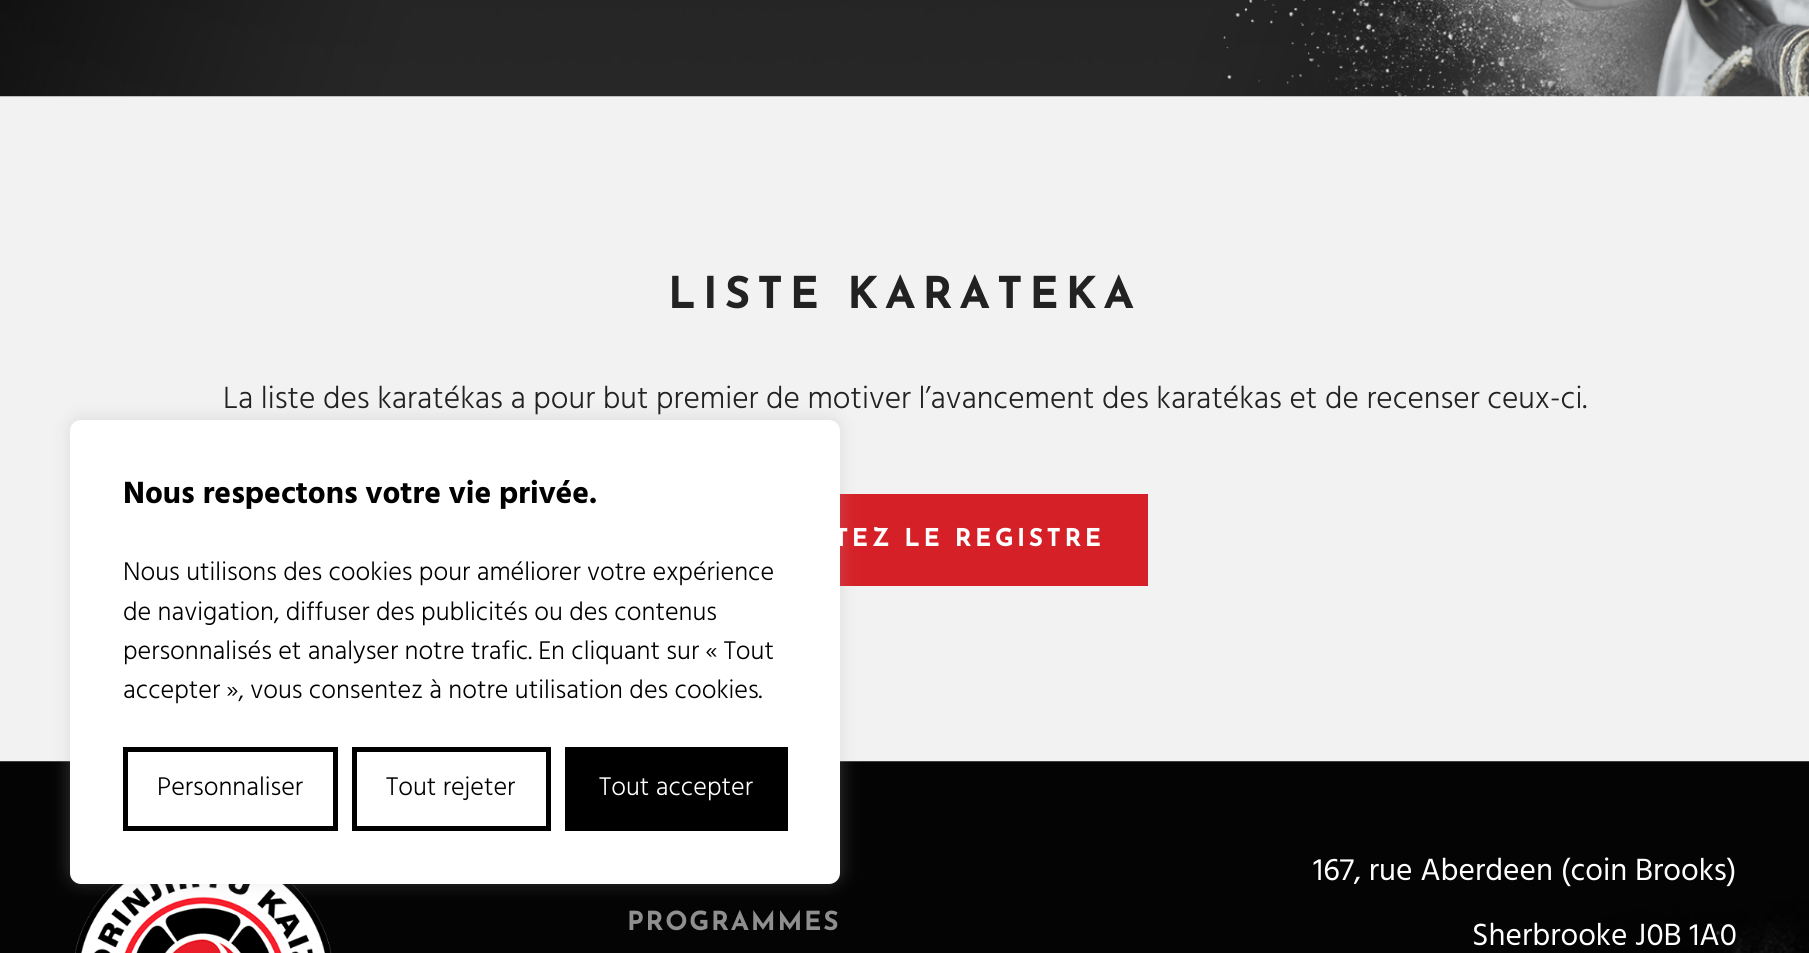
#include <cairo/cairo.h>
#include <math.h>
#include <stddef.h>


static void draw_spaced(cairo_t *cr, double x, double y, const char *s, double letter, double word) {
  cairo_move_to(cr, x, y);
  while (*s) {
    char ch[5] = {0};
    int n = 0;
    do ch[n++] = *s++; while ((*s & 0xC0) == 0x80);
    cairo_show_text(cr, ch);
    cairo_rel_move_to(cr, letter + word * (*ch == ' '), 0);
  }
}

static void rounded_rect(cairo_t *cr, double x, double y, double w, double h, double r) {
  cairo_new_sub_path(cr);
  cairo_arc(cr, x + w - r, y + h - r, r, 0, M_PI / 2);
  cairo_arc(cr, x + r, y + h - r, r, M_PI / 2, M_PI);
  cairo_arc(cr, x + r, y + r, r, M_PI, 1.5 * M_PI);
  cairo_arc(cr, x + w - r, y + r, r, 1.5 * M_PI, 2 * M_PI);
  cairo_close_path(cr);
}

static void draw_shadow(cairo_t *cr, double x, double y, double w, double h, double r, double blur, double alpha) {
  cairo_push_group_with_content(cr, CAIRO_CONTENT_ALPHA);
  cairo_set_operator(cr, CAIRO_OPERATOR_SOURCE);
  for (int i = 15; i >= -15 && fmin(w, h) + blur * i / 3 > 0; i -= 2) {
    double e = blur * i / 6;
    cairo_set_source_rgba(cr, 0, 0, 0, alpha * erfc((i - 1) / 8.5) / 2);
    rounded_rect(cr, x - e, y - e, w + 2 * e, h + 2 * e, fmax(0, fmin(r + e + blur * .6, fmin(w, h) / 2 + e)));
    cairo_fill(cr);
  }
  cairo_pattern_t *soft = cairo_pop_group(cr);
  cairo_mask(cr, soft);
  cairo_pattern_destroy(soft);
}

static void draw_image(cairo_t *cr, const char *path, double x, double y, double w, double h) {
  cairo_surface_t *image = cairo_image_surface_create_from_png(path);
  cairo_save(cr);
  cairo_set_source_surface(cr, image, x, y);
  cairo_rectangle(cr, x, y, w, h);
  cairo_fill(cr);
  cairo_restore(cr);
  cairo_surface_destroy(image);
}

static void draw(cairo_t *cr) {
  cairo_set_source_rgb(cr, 242 / 255.0, 242 / 255.0, 242 / 255.0);
  cairo_paint(cr);
  draw_image(cr, "images/1.png", 0, 0, 1809, 97);
  cairo_set_source_rgb(cr, 214 / 255.0, 32 / 255.0, 39 / 255.0);
  cairo_rectangle(cr, 840, 494, 308, 92);
  cairo_fill(cr);
  draw_image(cr, "images/2.png", 0, 761, 1809, 192);
  draw_image(cr, "images/3.png", 75, 884, 257, 69);
  cairo_set_source_rgb(cr, 172 / 255.0, 171 / 255.0, 171 / 255.0);
  draw_shadow(cr, 70, 418, 770, 464, 11, 9, 0.3);
  cairo_set_source_rgb(cr, 1, 1, 1);
  rounded_rect(cr, 70, 420, 770, 464, 11);
  cairo_fill(cr);
  cairo_rectangle(cr, 125.5, 749.5, 210, 79);
  cairo_set_source_rgb(cr, 0, 0, 0);
  cairo_set_line_width(cr, 5);
  cairo_stroke(cr);
  cairo_rectangle(cr, 354.5, 749.5, 194, 79);
  cairo_stroke(cr);
  cairo_rectangle(cr, 565, 747, 223, 84);
  cairo_fill(cr);
  cairo_select_font_face(cr, "Josefin Sans", CAIRO_FONT_SLANT_NORMAL, CAIRO_FONT_WEIGHT_BOLD);
  cairo_set_font_size(cr, 43.75);
  cairo_set_source_rgb(cr, 34 / 255.0, 34 / 255.0, 34 / 255.0);
  draw_spaced(cr, 668, 308, "LISTE KARATEKA", 7, 0);
  cairo_select_font_face(cr, "Hind Light", CAIRO_FONT_SLANT_NORMAL, CAIRO_FONT_WEIGHT_NORMAL);
  cairo_set_font_size(cr, 31.5);
  cairo_move_to(cr, 223, 408);
  cairo_show_text(cr, "La liste des karatékas a pour but premier de motiver l’avancement des karatékas et de recenser ceux-ci.");
  cairo_select_font_face(cr, "Josefin Sans", CAIRO_FONT_SLANT_NORMAL, CAIRO_FONT_WEIGHT_BOLD);
  cairo_set_font_size(cr, 24.5);
  cairo_set_source_rgb(cr, 1, 1, 1);
  draw_spaced(cr, 834, 546, "TEZ LE REGISTRE", 3.5, 0);
  cairo_select_font_face(cr, "Hind", CAIRO_FONT_SLANT_NORMAL, CAIRO_FONT_WEIGHT_BOLD);
  cairo_set_font_size(cr, 31.5);
  cairo_set_source_rgb(cr, 0, 0, 0);
  cairo_move_to(cr, 123, 503);
  cairo_show_text(cr, "Nous respectons votre vie privée.");
  cairo_select_font_face(cr, "Hind Light", CAIRO_FONT_SLANT_NORMAL, CAIRO_FONT_WEIGHT_NORMAL);
  cairo_set_font_size(cr, 26.25);
  cairo_move_to(cr, 123, 580);
  cairo_show_text(cr, "Nous utilisons des cookies pour améliorer votre expérience");
  cairo_move_to(cr, 123, 620);
  cairo_show_text(cr, "de navigation, diffuser des publicités ou des contenus");
  cairo_move_to(cr, 123, 659);
  cairo_show_text(cr, "personnalisés et analyser notre trafic. En cliquant sur « Tout");
  cairo_move_to(cr, 123, 698);
  cairo_show_text(cr, "accepter », vous consentez à notre utilisation des cookies.");
  cairo_move_to(cr, 157, 795);
  cairo_show_text(cr, "Personnaliser");
  cairo_move_to(cr, 386, 795);
  cairo_show_text(cr, "Tout rejeter");
  cairo_set_source_rgb(cr, 1, 1, 1);
  cairo_move_to(cr, 599, 795);
  cairo_show_text(cr, "Tout accepter");
  cairo_select_font_face(cr, "Josefin Sans", CAIRO_FONT_SLANT_NORMAL, CAIRO_FONT_WEIGHT_BOLD);
  cairo_set_source_rgb(cr, 143 / 255.0, 143 / 255.0, 143 / 255.0);
  draw_spaced(cr, 627, 930, "PROGRAMMES", 1.75, 0);
  cairo_select_font_face(cr, "Hind", CAIRO_FONT_SLANT_NORMAL, CAIRO_FONT_WEIGHT_NORMAL);
  cairo_set_font_size(cr, 31.5);
  cairo_set_source_rgb(cr, 1, 1, 1);
  cairo_move_to(cr, 1313, 880);
  cairo_show_text(cr, "167, rue Aberdeen (coin Brooks)");
  cairo_move_to(cr, 1472, 945);
  cairo_show_text(cr, "Sherbrooke J0B 1A0");
}

int main(void) {
  cairo_surface_t *surface = cairo_image_surface_create(CAIRO_FORMAT_RGB24, 1809, 953);
  cairo_t *cr = cairo_create(surface);
  cairo_font_options_t *options = cairo_font_options_create();
  cairo_font_options_set_hint_metrics(options, CAIRO_HINT_METRICS_OFF);
  cairo_font_options_set_hint_style(options, CAIRO_HINT_STYLE_NONE);
  cairo_set_font_options(cr, options);
  cairo_set_miter_limit(cr, 4);
  draw(cr);
  cairo_surface_write_to_png(surface, "out.png");
  cairo_font_options_destroy(options);
  cairo_destroy(cr);
  cairo_surface_destroy(surface);
  return 0;
}
